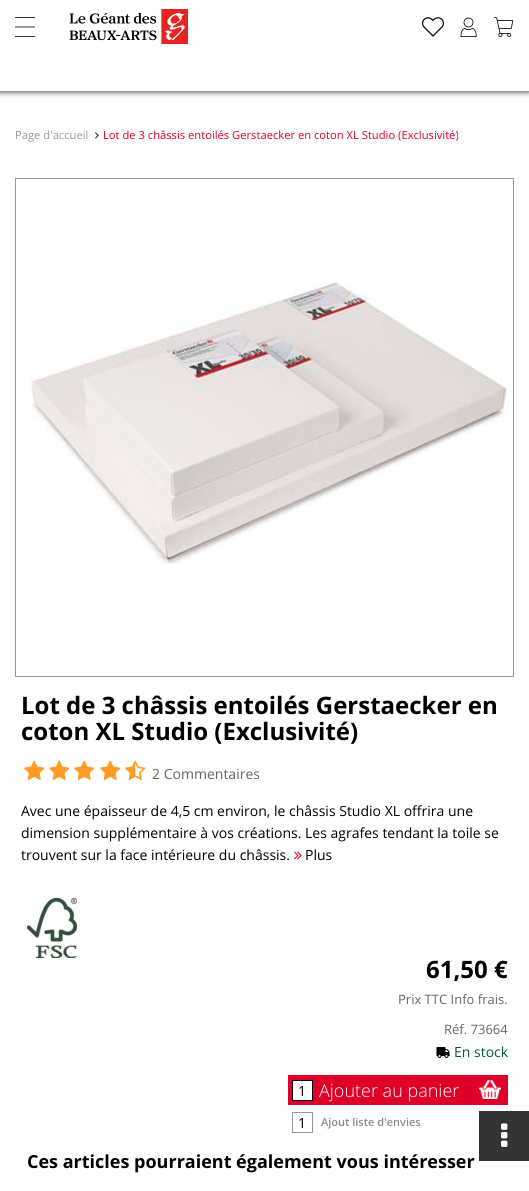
#include <cairo/cairo.h>
#include <math.h>
#include <stddef.h>


static void rounded_rect(cairo_t *cr, double x, double y, double w, double h, double r) {
  cairo_new_sub_path(cr);
  cairo_arc(cr, x + w - r, y + h - r, r, 0, M_PI / 2);
  cairo_arc(cr, x + r, y + h - r, r, M_PI / 2, M_PI);
  cairo_arc(cr, x + r, y + r, r, M_PI, 1.5 * M_PI);
  cairo_arc(cr, x + w - r, y + r, r, 1.5 * M_PI, 2 * M_PI);
  cairo_close_path(cr);
}

static void draw_shadow(cairo_t *cr, double x, double y, double w, double h, double r, double blur, double alpha) {
  cairo_push_group_with_content(cr, CAIRO_CONTENT_ALPHA);
  cairo_set_operator(cr, CAIRO_OPERATOR_SOURCE);
  for (int i = 15; i >= -15 && fmin(w, h) + blur * i / 3 > 0; i -= 2) {
    double e = blur * i / 6;
    cairo_set_source_rgba(cr, 0, 0, 0, alpha * erfc((i - 1) / 8.5) / 2);
    rounded_rect(cr, x - e, y - e, w + 2 * e, h + 2 * e, fmax(0, fmin(r + e + blur * .6, fmin(w, h) / 2 + e)));
    cairo_fill(cr);
  }
  cairo_pattern_t *soft = cairo_pop_group(cr);
  cairo_mask(cr, soft);
  cairo_pattern_destroy(soft);
}

static void draw_image(cairo_t *cr, const char *path, double x, double y, double w, double h) {
  cairo_surface_t *image = cairo_image_surface_create_from_png(path);
  cairo_save(cr);
  cairo_set_source_surface(cr, image, x, y);
  cairo_rectangle(cr, x, y, w, h);
  cairo_fill(cr);
  cairo_restore(cr);
  cairo_surface_destroy(image);
}

static void draw(cairo_t *cr) {
  cairo_set_source_rgb(cr, 1, 1, 1);
  cairo_paint(cr);
  cairo_save(cr);
  cairo_rectangle(cr, 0, 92, 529, 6);
  cairo_clip(cr);
  cairo_set_source_rgb(cr, 65 / 255.0, 70 / 255.0, 77 / 255.0);
  draw_shadow(cr, 0, 0, 529, 92, 0, 3, 1);
  cairo_restore(cr);
  cairo_set_source_rgb(cr, 51 / 255.0, 51 / 255.0, 51 / 255.0);
  cairo_rectangle(cr, 15, 17, 20, 1);
  cairo_fill(cr);
  cairo_new_path(cr);
  cairo_move_to(cr, 15, 27);
  cairo_line_to(cr, 35, 27);
  cairo_set_source_rgb(cr, 0, 0, 0);
  cairo_set_line_width(cr, 0.8);
  cairo_stroke(cr);
  cairo_set_source_rgb(cr, 51 / 255.0, 51 / 255.0, 51 / 255.0);
  cairo_rectangle(cr, 15, 36, 20, 1);
  cairo_fill(cr);
  draw_image(cr, "images/1.png", 69, 9, 119, 35);
  draw_image(cr, "images/2.png", 422, 17, 22, 20);
  draw_image(cr, "images/3.png", 460, 17, 17, 20);
  draw_image(cr, "images/4.png", 494, 17, 20, 20);
  cairo_set_source_rgb(cr, 153 / 255.0, 153 / 255.0, 153 / 255.0);
  cairo_rectangle(cr, 0, 91, 529, 1);
  cairo_fill(cr);
  draw_image(cr, "images/5.png", 95, 132, 4, 7);
  draw_image(cr, "images/6.png", 31, 282, 478, 282);
  cairo_rectangle(cr, 15.5, 178.5, 498, 498);
  cairo_set_line_width(cr, 1);
  cairo_stroke(cr);
  draw_image(cr, "images/7.png", 24, 760, 21, 20);
  draw_image(cr, "images/7.png", 49, 760, 21, 20);
  draw_image(cr, "images/7.png", 74, 760, 21, 20);
  draw_image(cr, "images/7.png", 100, 760, 21, 20);
  draw_image(cr, "images/8.png", 125, 760, 21, 20);
  draw_image(cr, "images/9.png", 294, 851, 8, 9);
  draw_image(cr, "images/10.png", 27, 898, 50, 60);
  draw_image(cr, "images/11.png", 436, 1047, 14, 11);
  cairo_set_source_rgb(cr, 223 / 255.0, 0, 41 / 255.0);
  cairo_rectangle(cr, 288, 1075, 220, 30);
  cairo_fill(cr);
  cairo_set_source_rgb(cr, 1, 1, 1);
  cairo_rectangle(cr, 292.5, 1080.5, 20, 20);
  cairo_fill_preserve(cr);
  cairo_set_source_rgb(cr, 0, 0, 0);
  cairo_stroke(cr);
  draw_image(cr, "images/12.png", 479, 1080, 22, 19);
  cairo_rectangle(cr, 292.5, 1112.5, 20, 20);
  cairo_set_source_rgb(cr, 153 / 255.0, 153 / 255.0, 153 / 255.0);
  cairo_stroke(cr);
  cairo_set_source_rgb(cr, 51 / 255.0, 51 / 255.0, 51 / 255.0);
  cairo_rectangle(cr, 479, 1111, 50, 50);
  cairo_fill(cr);
  draw_image(cr, "images/13.png", 501, 1123, 7, 24);
  cairo_select_font_face(cr, "Open Sans", CAIRO_FONT_SLANT_NORMAL, CAIRO_FONT_WEIGHT_NORMAL);
  cairo_set_font_size(cr, 11.2);
  cairo_set_source_rgb(cr, 153 / 255.0, 153 / 255.0, 153 / 255.0);
  cairo_move_to(cr, 15, 139);
  cairo_show_text(cr, "Page d'accueil");
  cairo_set_source_rgb(cr, 223 / 255.0, 0, 41 / 255.0);
  cairo_move_to(cr, 103, 139);
  cairo_show_text(cr, "Lot de 3 châssis entoilés Gerstaecker en coton XL Studio (Exclusivité)");
  cairo_select_font_face(cr, "Open Sans", CAIRO_FONT_SLANT_NORMAL, CAIRO_FONT_WEIGHT_BOLD);
  cairo_set_font_size(cr, 24);
  cairo_set_source_rgb(cr, 0, 0, 0);
  cairo_move_to(cr, 21, 714);
  cairo_show_text(cr, "Lot de 3 châssis entoilés Gerstaecker en");
  cairo_move_to(cr, 21, 740);
  cairo_show_text(cr, "coton XL Studio (Exclusivité)");
  cairo_select_font_face(cr, "Open Sans", CAIRO_FONT_SLANT_NORMAL, CAIRO_FONT_WEIGHT_NORMAL);
  cairo_set_font_size(cr, 14);
  cairo_set_source_rgb(cr, 102 / 255.0, 102 / 255.0, 102 / 255.0);
  cairo_move_to(cr, 152, 779);
  cairo_show_text(cr, "2 Commentaires");
  cairo_set_source_rgb(cr, 0, 0, 0);
  cairo_move_to(cr, 21, 816);
  cairo_show_text(cr, "Avec une épaisseur de 4,5 cm environ, le châssis Studio XL offrira une");
  cairo_move_to(cr, 21, 838);
  cairo_show_text(cr, "dimension supplémentaire à vos créations. Les agrafes tendant la toile se");
  cairo_move_to(cr, 21, 860);
  cairo_show_text(cr, "trouvent sur la face intérieure du châssis.");
  cairo_move_to(cr, 305, 860);
  cairo_show_text(cr, "Plus");
  cairo_select_font_face(cr, "Open Sans", CAIRO_FONT_SLANT_NORMAL, CAIRO_FONT_WEIGHT_BOLD);
  cairo_set_font_size(cr, 24);
  cairo_move_to(cr, 426, 978);
  cairo_show_text(cr, "61,50 €");
  cairo_select_font_face(cr, "Open Sans", CAIRO_FONT_SLANT_NORMAL, CAIRO_FONT_WEIGHT_NORMAL);
  cairo_set_font_size(cr, 13);
  cairo_set_source_rgb(cr, 102 / 255.0, 102 / 255.0, 102 / 255.0);
  cairo_move_to(cr, 398, 1004);
  cairo_show_text(cr, "Prix TTC Info frais.");
  cairo_move_to(cr, 444, 1034);
  cairo_show_text(cr, "Réf. 73664");
  cairo_set_font_size(cr, 14);
  cairo_set_source_rgb(cr, 2 / 255.0, 92 / 255.0, 67 / 255.0);
  cairo_move_to(cr, 454, 1057);
  cairo_show_text(cr, "En stock");
  cairo_set_source_rgb(cr, 0, 0, 0);
  cairo_move_to(cr, 298, 1096);
  cairo_show_text(cr, "1");
  cairo_select_font_face(cr, "Open Sans Light", CAIRO_FONT_SLANT_NORMAL, CAIRO_FONT_WEIGHT_NORMAL);
  cairo_set_font_size(cr, 18);
  cairo_set_source_rgb(cr, 1, 1, 1);
  cairo_move_to(cr, 319, 1097);
  cairo_show_text(cr, "Ajouter au panier");
  cairo_select_font_face(cr, "Open Sans", CAIRO_FONT_SLANT_NORMAL, CAIRO_FONT_WEIGHT_NORMAL);
  cairo_set_font_size(cr, 14);
  cairo_set_source_rgb(cr, 0, 0, 0);
  cairo_move_to(cr, 298, 1128);
  cairo_show_text(cr, "1");
  cairo_select_font_face(cr, "Open Sans SemiBold", CAIRO_FONT_SLANT_NORMAL, CAIRO_FONT_WEIGHT_NORMAL);
  cairo_set_font_size(cr, 11);
  cairo_set_source_rgb(cr, 140 / 255.0, 140 / 255.0, 140 / 255.0);
  cairo_move_to(cr, 321, 1126);
  cairo_show_text(cr, "Ajout liste d'envies");
  cairo_select_font_face(cr, "Open Sans", CAIRO_FONT_SLANT_NORMAL, CAIRO_FONT_WEIGHT_BOLD);
  cairo_set_font_size(cr, 18);
  cairo_set_source_rgb(cr, 0, 0, 0);
  cairo_move_to(cr, 27, 1168);
  cairo_show_text(cr, "Ces articles pourraient également vous intéresser");
}

int main(void) {
  cairo_surface_t *surface = cairo_image_surface_create(CAIRO_FORMAT_RGB24, 529, 1191);
  cairo_t *cr = cairo_create(surface);
  cairo_font_options_t *options = cairo_font_options_create();
  cairo_font_options_set_hint_metrics(options, CAIRO_HINT_METRICS_OFF);
  cairo_font_options_set_hint_style(options, CAIRO_HINT_STYLE_NONE);
  cairo_set_font_options(cr, options);
  cairo_set_miter_limit(cr, 4);
  draw(cr);
  cairo_surface_write_to_png(surface, "out.png");
  cairo_font_options_destroy(options);
  cairo_destroy(cr);
  cairo_surface_destroy(surface);
  return 0;
}
